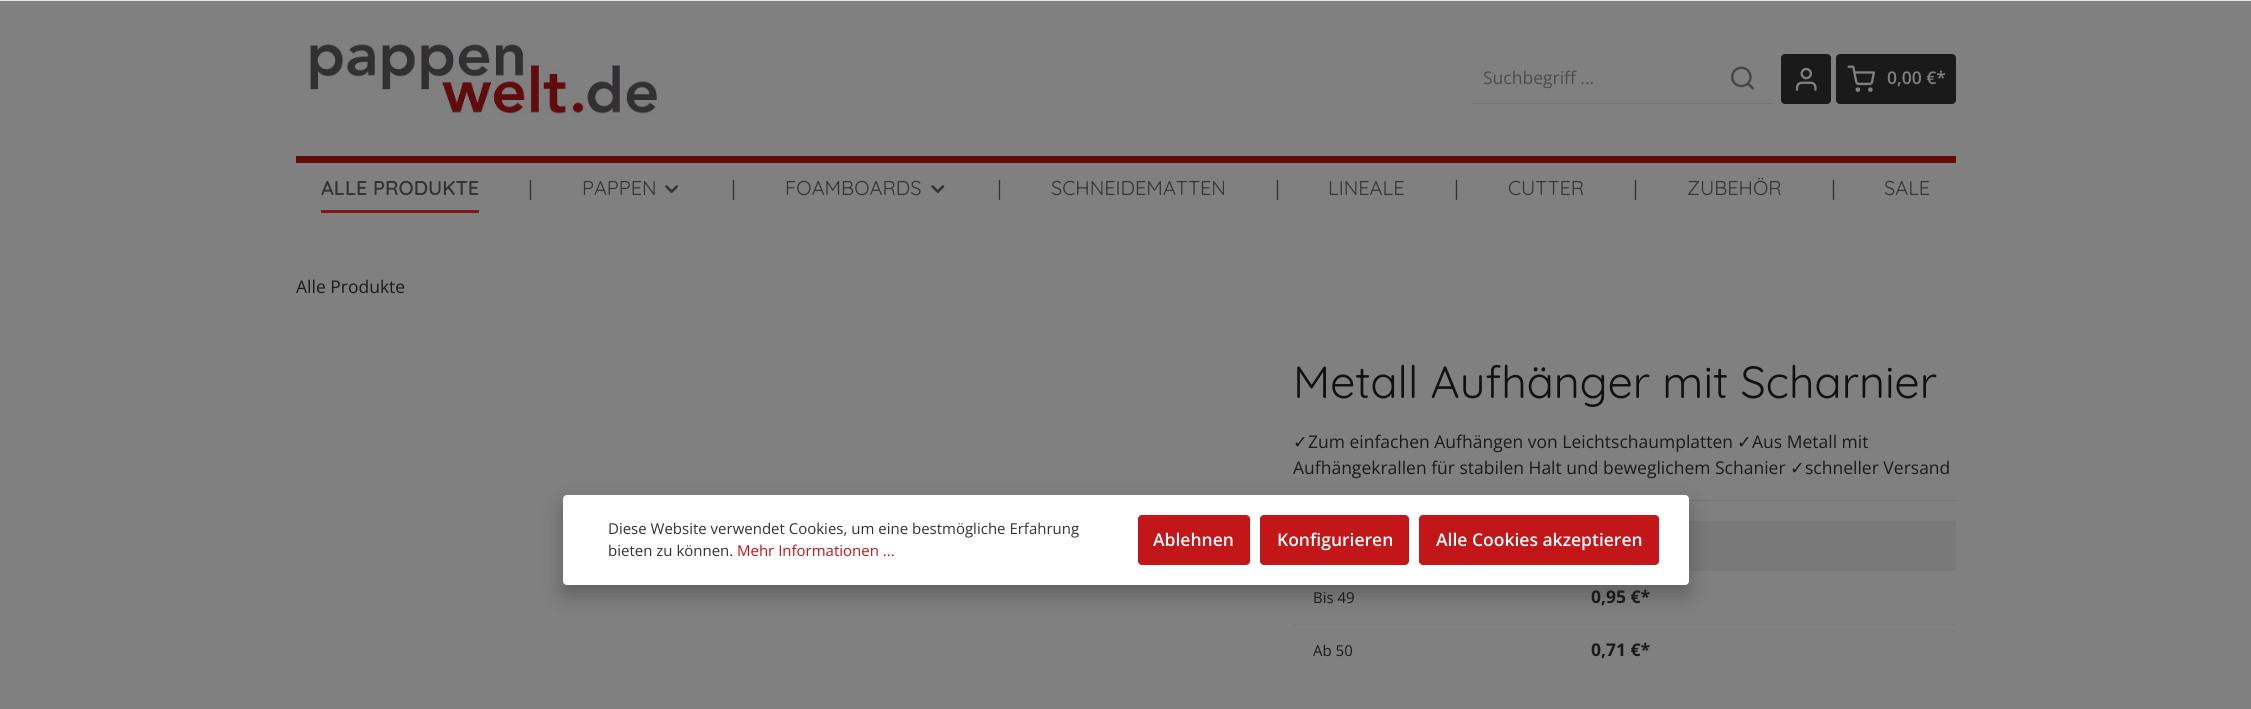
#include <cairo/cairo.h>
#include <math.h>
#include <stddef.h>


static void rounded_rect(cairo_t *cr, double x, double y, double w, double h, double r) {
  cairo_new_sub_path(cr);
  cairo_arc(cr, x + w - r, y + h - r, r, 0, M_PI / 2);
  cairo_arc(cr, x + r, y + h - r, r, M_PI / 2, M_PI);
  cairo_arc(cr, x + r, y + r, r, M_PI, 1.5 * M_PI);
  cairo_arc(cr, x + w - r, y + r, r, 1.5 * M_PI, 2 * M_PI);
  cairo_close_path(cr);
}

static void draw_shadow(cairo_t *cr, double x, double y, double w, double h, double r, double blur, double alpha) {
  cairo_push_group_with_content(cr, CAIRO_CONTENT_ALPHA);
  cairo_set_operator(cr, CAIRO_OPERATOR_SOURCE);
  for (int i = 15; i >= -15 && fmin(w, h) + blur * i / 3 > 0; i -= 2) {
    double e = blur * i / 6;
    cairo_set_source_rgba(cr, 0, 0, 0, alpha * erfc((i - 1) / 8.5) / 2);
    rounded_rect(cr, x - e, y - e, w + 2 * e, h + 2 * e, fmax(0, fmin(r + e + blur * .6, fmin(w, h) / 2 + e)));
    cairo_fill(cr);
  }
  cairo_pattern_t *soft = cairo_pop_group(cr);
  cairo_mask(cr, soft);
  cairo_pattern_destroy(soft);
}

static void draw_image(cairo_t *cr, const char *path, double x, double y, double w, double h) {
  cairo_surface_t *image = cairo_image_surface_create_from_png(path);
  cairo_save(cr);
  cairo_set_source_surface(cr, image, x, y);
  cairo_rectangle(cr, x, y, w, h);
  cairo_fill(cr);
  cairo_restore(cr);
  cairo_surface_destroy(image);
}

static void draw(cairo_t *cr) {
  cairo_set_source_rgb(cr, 128 / 255.0, 128 / 255.0, 128 / 255.0);
  cairo_paint(cr);
  draw_image(cr, "images/1.png", 310, 44, 347, 72);
  cairo_set_source_rgb(cr, 116 / 255.0, 116 / 255.0, 116 / 255.0);
  cairo_rectangle(cr, 1471, 103, 300, 1);
  cairo_fill(cr);
  draw_image(cr, "images/2.png", 1731, 66, 23, 24);
  cairo_set_source_rgb(cr, 26 / 255.0, 26 / 255.0, 26 / 255.0);
  rounded_rect(cr, 1781, 54, 50, 50, 4);
  cairo_fill(cr);
  draw_image(cr, "images/3.png", 1795, 67, 22, 24);
  rounded_rect(cr, 1836, 54, 120, 50, 4);
  cairo_fill(cr);
  draw_image(cr, "images/4.png", 1847, 65, 28, 27);
  cairo_set_source_rgb(cr, 98 / 255.0, 11 / 255.0, 13 / 255.0);
  cairo_rectangle(cr, 296, 156, 1660, 7);
  cairo_fill(cr);
  cairo_set_source_rgb(cr, 121 / 255.0, 27 / 255.0, 28 / 255.0);
  cairo_rectangle(cr, 321, 210, 158, 3);
  cairo_fill(cr);
  draw_image(cr, "images/5.png", 665, 185, 13, 8);
  draw_image(cr, "images/6.png", 931, 185, 14, 8);
  cairo_set_source_rgb(cr, 116 / 255.0, 116 / 255.0, 116 / 255.0);
  cairo_rectangle(cr, 1689, 500, 267, 1);
  cairo_fill(cr);
  cairo_set_source_rgb(cr, 121 / 255.0, 121 / 255.0, 121 / 255.0);
  cairo_rectangle(cr, 1689, 521, 267, 50);
  cairo_fill(cr);
  cairo_rectangle(cr, 1293, 624, 663, 1);
  cairo_fill(cr);
  cairo_set_source_rgb(cr, 125 / 255.0, 125 / 255.0, 125 / 255.0);
  cairo_rectangle(cr, 536, 690, 1, 1);
  cairo_fill(cr);
  cairo_set_source_rgb(cr, 232 / 255.0, 231 / 255.0, 232 / 255.0);
  cairo_rectangle(cr, 0, 0, 2251, 1);
  cairo_fill(cr);
  cairo_set_source_rgb(cr, 0, 0, 0);
  draw_shadow(cr, 563, 505, 1126, 90, 4, 10, 0.25);
  cairo_set_source_rgb(cr, 1, 1, 1);
  rounded_rect(cr, 563, 495, 1126, 90, 4);
  cairo_fill(cr);
  cairo_set_source_rgb(cr, 195 / 255.0, 22 / 255.0, 25 / 255.0);
  rounded_rect(cr, 1138.5, 515.5, 111, 49, 3.5);
  cairo_fill_preserve(cr);
  cairo_set_line_width(cr, 1);
  cairo_stroke(cr);
  rounded_rect(cr, 1260.5, 515.5, 148, 49, 3.5);
  cairo_fill_preserve(cr);
  cairo_stroke(cr);
  rounded_rect(cr, 1419.5, 515.5, 239, 49, 3.5);
  cairo_fill_preserve(cr);
  cairo_stroke(cr);
  cairo_select_font_face(cr, "Open Sans", CAIRO_FONT_SLANT_NORMAL, CAIRO_FONT_WEIGHT_NORMAL);
  cairo_set_font_size(cr, 17.5);
  cairo_set_source_rgb(cr, 77 / 255.0, 77 / 255.0, 77 / 255.0);
  cairo_move_to(cr, 1483, 84);
  cairo_show_text(cr, "Suchbegriff ...");
  cairo_select_font_face(cr, "Open Sans SemiBold", CAIRO_FONT_SLANT_NORMAL, CAIRO_FONT_WEIGHT_NORMAL);
  cairo_set_source_rgb(cr, 128 / 255.0, 128 / 255.0, 128 / 255.0);
  cairo_move_to(cr, 1887, 84);
  cairo_show_text(cr, "0,00 €*");
  cairo_select_font_face(cr, "Quicksand SemiBold", CAIRO_FONT_SLANT_NORMAL, CAIRO_FONT_WEIGHT_NORMAL);
  cairo_set_font_size(cr, 20);
  cairo_set_source_rgb(cr, 52 / 255.0, 51 / 255.0, 52 / 255.0);
  cairo_move_to(cr, 321, 195);
  cairo_show_text(cr, "ALLE PRODUKTE");
  cairo_select_font_face(cr, "Open Sans", CAIRO_FONT_SLANT_NORMAL, CAIRO_FONT_WEIGHT_NORMAL);
  cairo_move_to(cr, 525, 195);
  cairo_show_text(cr, "|");
  cairo_select_font_face(cr, "Quicksand Light", CAIRO_FONT_SLANT_NORMAL, CAIRO_FONT_WEIGHT_NORMAL);
  cairo_move_to(cr, 582, 195);
  cairo_show_text(cr, "PAPPEN");
  cairo_select_font_face(cr, "Open Sans", CAIRO_FONT_SLANT_NORMAL, CAIRO_FONT_WEIGHT_NORMAL);
  cairo_move_to(cr, 728, 195);
  cairo_show_text(cr, "|");
  cairo_select_font_face(cr, "Quicksand Light", CAIRO_FONT_SLANT_NORMAL, CAIRO_FONT_WEIGHT_NORMAL);
  cairo_move_to(cr, 785, 195);
  cairo_show_text(cr, "FOAMBOARDS");
  cairo_select_font_face(cr, "Open Sans", CAIRO_FONT_SLANT_NORMAL, CAIRO_FONT_WEIGHT_NORMAL);
  cairo_move_to(cr, 994, 195);
  cairo_show_text(cr, "|");
  cairo_select_font_face(cr, "Quicksand Light", CAIRO_FONT_SLANT_NORMAL, CAIRO_FONT_WEIGHT_NORMAL);
  cairo_move_to(cr, 1051, 195);
  cairo_show_text(cr, "SCHNEIDEMATTEN");
  cairo_select_font_face(cr, "Open Sans", CAIRO_FONT_SLANT_NORMAL, CAIRO_FONT_WEIGHT_NORMAL);
  cairo_move_to(cr, 1272, 195);
  cairo_show_text(cr, "|");
  cairo_select_font_face(cr, "Quicksand Light", CAIRO_FONT_SLANT_NORMAL, CAIRO_FONT_WEIGHT_NORMAL);
  cairo_move_to(cr, 1328, 195);
  cairo_show_text(cr, "LINEALE");
  cairo_select_font_face(cr, "Open Sans", CAIRO_FONT_SLANT_NORMAL, CAIRO_FONT_WEIGHT_NORMAL);
  cairo_move_to(cr, 1451, 195);
  cairo_show_text(cr, "|");
  cairo_select_font_face(cr, "Quicksand Light", CAIRO_FONT_SLANT_NORMAL, CAIRO_FONT_WEIGHT_NORMAL);
  cairo_move_to(cr, 1508, 195);
  cairo_show_text(cr, "CUTTER");
  cairo_select_font_face(cr, "Open Sans", CAIRO_FONT_SLANT_NORMAL, CAIRO_FONT_WEIGHT_NORMAL);
  cairo_move_to(cr, 1630, 195);
  cairo_show_text(cr, "|");
  cairo_select_font_face(cr, "Quicksand Light", CAIRO_FONT_SLANT_NORMAL, CAIRO_FONT_WEIGHT_NORMAL);
  cairo_move_to(cr, 1687, 195);
  cairo_show_text(cr, "ZUBEHÖR");
  cairo_select_font_face(cr, "Open Sans", CAIRO_FONT_SLANT_NORMAL, CAIRO_FONT_WEIGHT_NORMAL);
  cairo_move_to(cr, 1828, 195);
  cairo_show_text(cr, "|");
  cairo_select_font_face(cr, "Quicksand Light", CAIRO_FONT_SLANT_NORMAL, CAIRO_FONT_WEIGHT_NORMAL);
  cairo_move_to(cr, 1884, 195);
  cairo_show_text(cr, "SALE");
  cairo_select_font_face(cr, "Open Sans", CAIRO_FONT_SLANT_NORMAL, CAIRO_FONT_WEIGHT_NORMAL);
  cairo_set_font_size(cr, 17.5);
  cairo_set_source_rgb(cr, 26 / 255.0, 26 / 255.0, 26 / 255.0);
  cairo_move_to(cr, 296, 293);
  cairo_show_text(cr, "Alle Produkte");
  cairo_select_font_face(cr, "Quicksand Light", CAIRO_FONT_SLANT_NORMAL, CAIRO_FONT_WEIGHT_NORMAL);
  cairo_set_font_size(cr, 45);
  cairo_set_source_rgb(cr, 17 / 255.0, 17 / 255.0, 17 / 255.0);
  cairo_move_to(cr, 1293, 398);
  cairo_show_text(cr, "Metall Aufhänger mit Scharnier");
  cairo_select_font_face(cr, "DejaVu Sans", CAIRO_FONT_SLANT_NORMAL, CAIRO_FONT_WEIGHT_NORMAL);
  cairo_set_font_size(cr, 17.5);
  cairo_set_source_rgb(cr, 26 / 255.0, 26 / 255.0, 26 / 255.0);
  cairo_move_to(cr, 1293, 448);
  cairo_show_text(cr, "✓");
  cairo_select_font_face(cr, "Open Sans", CAIRO_FONT_SLANT_NORMAL, CAIRO_FONT_WEIGHT_NORMAL);
  cairo_move_to(cr, 1308, 448);
  cairo_show_text(cr, "Zum einfachen Aufhängen von Leichtschaumplatten");
  cairo_select_font_face(cr, "DejaVu Sans", CAIRO_FONT_SLANT_NORMAL, CAIRO_FONT_WEIGHT_NORMAL);
  cairo_move_to(cr, 1737, 448);
  cairo_show_text(cr, "✓");
  cairo_select_font_face(cr, "Open Sans", CAIRO_FONT_SLANT_NORMAL, CAIRO_FONT_WEIGHT_NORMAL);
  cairo_move_to(cr, 1752, 448);
  cairo_show_text(cr, "Aus Metall mit");
  cairo_move_to(cr, 1293, 474);
  cairo_show_text(cr, "Aufhängekrallen für stabilen Halt und beweglichem Schanier");
  cairo_select_font_face(cr, "DejaVu Sans", CAIRO_FONT_SLANT_NORMAL, CAIRO_FONT_WEIGHT_NORMAL);
  cairo_move_to(cr, 1790, 474);
  cairo_show_text(cr, "✓");
  cairo_select_font_face(cr, "Open Sans", CAIRO_FONT_SLANT_NORMAL, CAIRO_FONT_WEIGHT_NORMAL);
  cairo_move_to(cr, 1805, 474);
  cairo_show_text(cr, "schneller Versand");
  cairo_set_font_size(cr, 15);
  cairo_move_to(cr, 1313, 603);
  cairo_show_text(cr, "Bis 49");
  cairo_select_font_face(cr, "Open Sans", CAIRO_FONT_SLANT_NORMAL, CAIRO_FONT_WEIGHT_BOLD);
  cairo_set_font_size(cr, 17.5);
  cairo_move_to(cr, 1591, 603);
  cairo_show_text(cr, "0,95 €*");
  cairo_select_font_face(cr, "Open Sans", CAIRO_FONT_SLANT_NORMAL, CAIRO_FONT_WEIGHT_NORMAL);
  cairo_set_font_size(cr, 15);
  cairo_move_to(cr, 1313, 656);
  cairo_show_text(cr, "Ab 50");
  cairo_select_font_face(cr, "Open Sans", CAIRO_FONT_SLANT_NORMAL, CAIRO_FONT_WEIGHT_BOLD);
  cairo_set_font_size(cr, 17.5);
  cairo_move_to(cr, 1591, 656);
  cairo_show_text(cr, "0,71 €*");
  cairo_select_font_face(cr, "Open Sans", CAIRO_FONT_SLANT_NORMAL, CAIRO_FONT_WEIGHT_NORMAL);
  cairo_set_font_size(cr, 15);
  cairo_set_source_rgb(cr, 52 / 255.0, 51 / 255.0, 52 / 255.0);
  cairo_move_to(cr, 608, 534);
  cairo_show_text(cr, "Diese Website verwendet Cookies, um eine bestmögliche Erfahrung");
  cairo_move_to(cr, 608, 556);
  cairo_show_text(cr, "bieten zu können.");
  cairo_set_source_rgb(cr, 195 / 255.0, 22 / 255.0, 25 / 255.0);
  cairo_move_to(cr, 737, 556);
  cairo_show_text(cr, "Mehr Informationen ...");
  cairo_select_font_face(cr, "Open Sans SemiBold", CAIRO_FONT_SLANT_NORMAL, CAIRO_FONT_WEIGHT_NORMAL);
  cairo_set_font_size(cr, 17.5);
  cairo_set_source_rgb(cr, 1, 1, 1);
  cairo_move_to(cr, 1153, 546);
  cairo_show_text(cr, "Ablehnen");
  cairo_move_to(cr, 1277, 546);
  cairo_show_text(cr, "Konfigurieren");
  cairo_move_to(cr, 1436, 546);
  cairo_show_text(cr, "Alle Cookies akzeptieren");
}

int main(void) {
  cairo_surface_t *surface = cairo_image_surface_create(CAIRO_FORMAT_RGB24, 2251, 709);
  cairo_t *cr = cairo_create(surface);
  cairo_font_options_t *options = cairo_font_options_create();
  cairo_font_options_set_hint_metrics(options, CAIRO_HINT_METRICS_OFF);
  cairo_font_options_set_hint_style(options, CAIRO_HINT_STYLE_NONE);
  cairo_set_font_options(cr, options);
  cairo_set_miter_limit(cr, 4);
  draw(cr);
  cairo_surface_write_to_png(surface, "out.png");
  cairo_font_options_destroy(options);
  cairo_destroy(cr);
  cairo_surface_destroy(surface);
  return 0;
}
